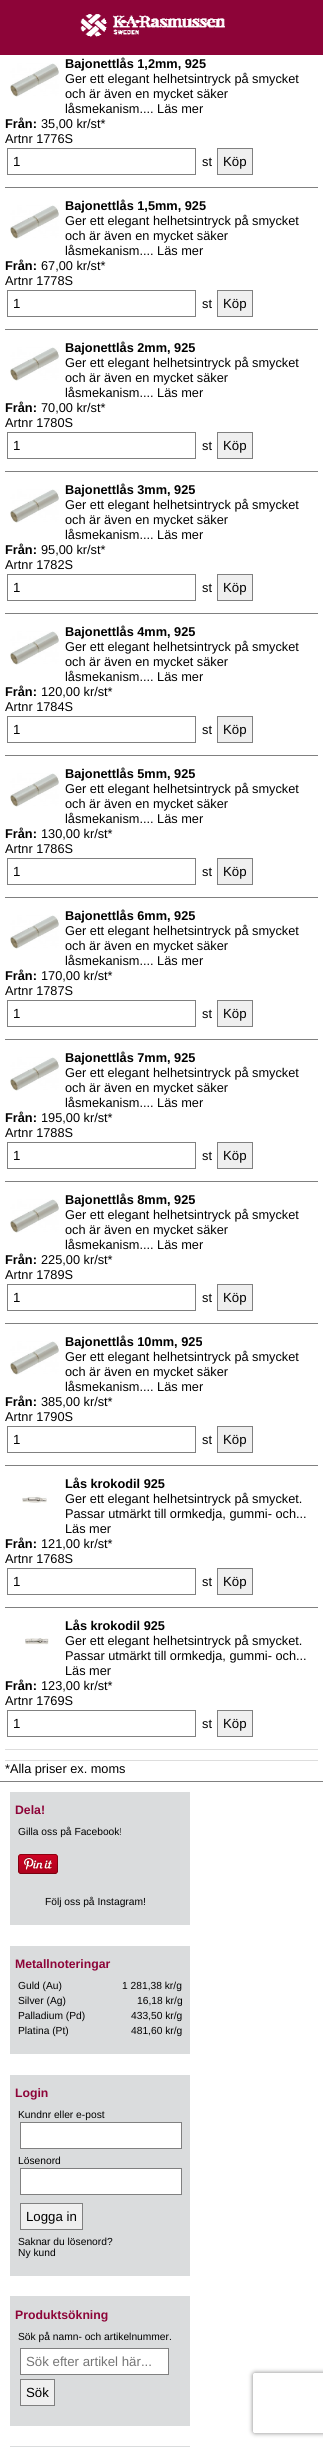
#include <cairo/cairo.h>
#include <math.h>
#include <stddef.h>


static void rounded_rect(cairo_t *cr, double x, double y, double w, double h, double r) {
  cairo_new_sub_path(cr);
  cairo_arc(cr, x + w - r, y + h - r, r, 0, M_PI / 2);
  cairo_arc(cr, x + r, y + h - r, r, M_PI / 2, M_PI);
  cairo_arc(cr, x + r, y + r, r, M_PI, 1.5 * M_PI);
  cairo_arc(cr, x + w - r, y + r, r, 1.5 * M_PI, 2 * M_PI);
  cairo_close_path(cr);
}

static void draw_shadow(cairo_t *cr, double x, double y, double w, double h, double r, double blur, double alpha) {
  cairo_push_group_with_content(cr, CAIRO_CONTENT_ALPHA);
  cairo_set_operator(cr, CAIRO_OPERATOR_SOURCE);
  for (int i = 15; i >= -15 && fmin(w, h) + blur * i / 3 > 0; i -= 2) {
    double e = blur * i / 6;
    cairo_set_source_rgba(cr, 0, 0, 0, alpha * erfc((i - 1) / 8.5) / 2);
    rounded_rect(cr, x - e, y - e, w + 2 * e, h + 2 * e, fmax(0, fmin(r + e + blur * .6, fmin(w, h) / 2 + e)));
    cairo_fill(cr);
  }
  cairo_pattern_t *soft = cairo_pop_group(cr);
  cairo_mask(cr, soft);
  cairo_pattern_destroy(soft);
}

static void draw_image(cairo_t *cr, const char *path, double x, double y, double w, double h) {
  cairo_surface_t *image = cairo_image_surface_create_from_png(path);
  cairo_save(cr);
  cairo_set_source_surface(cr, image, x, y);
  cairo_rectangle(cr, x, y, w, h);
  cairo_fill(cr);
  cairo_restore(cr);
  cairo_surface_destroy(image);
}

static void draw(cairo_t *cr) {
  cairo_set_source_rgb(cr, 1, 1, 1);
  cairo_paint(cr);
  cairo_set_source_rgb(cr, 141 / 255.0, 4 / 255.0, 56 / 255.0);
  cairo_rectangle(cr, 0, 0, 323, 55);
  cairo_fill(cr);
  draw_image(cr, "images/1.png", 80, 14, 145, 23);
  draw_image(cr, "images/2.png", 10, 63, 49, 34);
  cairo_rectangle(cr, 7.5, 148.5, 188, 26);
  cairo_set_source_rgb(cr, 128 / 255.0, 128 / 255.0, 128 / 255.0);
  cairo_set_line_width(cr, 1);
  cairo_stroke(cr);
  cairo_set_source_rgb(cr, 239 / 255.0, 239 / 255.0, 239 / 255.0);
  cairo_rectangle(cr, 217.5, 148.5, 35, 26);
  cairo_fill_preserve(cr);
  cairo_set_source_rgb(cr, 128 / 255.0, 128 / 255.0, 128 / 255.0);
  cairo_stroke(cr);
  cairo_rectangle(cr, 5, 187, 313, 1);
  cairo_fill(cr);
  draw_image(cr, "images/2.png", 10, 205, 49, 34);
  cairo_rectangle(cr, 7.5, 290.5, 188, 26);
  cairo_stroke(cr);
  cairo_set_source_rgb(cr, 239 / 255.0, 239 / 255.0, 239 / 255.0);
  cairo_rectangle(cr, 217.5, 290.5, 35, 26);
  cairo_fill_preserve(cr);
  cairo_set_source_rgb(cr, 128 / 255.0, 128 / 255.0, 128 / 255.0);
  cairo_stroke(cr);
  cairo_rectangle(cr, 5, 329, 313, 1);
  cairo_fill(cr);
  draw_image(cr, "images/2.png", 10, 347, 49, 34);
  cairo_rectangle(cr, 7.5, 432.5, 188, 26);
  cairo_stroke(cr);
  cairo_set_source_rgb(cr, 239 / 255.0, 239 / 255.0, 239 / 255.0);
  cairo_rectangle(cr, 217.5, 432.5, 35, 26);
  cairo_fill_preserve(cr);
  cairo_set_source_rgb(cr, 128 / 255.0, 128 / 255.0, 128 / 255.0);
  cairo_stroke(cr);
  cairo_rectangle(cr, 5, 471, 313, 1);
  cairo_fill(cr);
  draw_image(cr, "images/2.png", 10, 489, 49, 34);
  cairo_rectangle(cr, 7.5, 574.5, 188, 26);
  cairo_stroke(cr);
  cairo_set_source_rgb(cr, 239 / 255.0, 239 / 255.0, 239 / 255.0);
  cairo_rectangle(cr, 217.5, 574.5, 35, 26);
  cairo_fill_preserve(cr);
  cairo_set_source_rgb(cr, 128 / 255.0, 128 / 255.0, 128 / 255.0);
  cairo_stroke(cr);
  cairo_rectangle(cr, 5, 613, 313, 1);
  cairo_fill(cr);
  draw_image(cr, "images/3.png", 10, 631, 49, 34);
  cairo_rectangle(cr, 7.5, 716.5, 188, 26);
  cairo_stroke(cr);
  cairo_set_source_rgb(cr, 239 / 255.0, 239 / 255.0, 239 / 255.0);
  cairo_rectangle(cr, 217.5, 716.5, 35, 26);
  cairo_fill_preserve(cr);
  cairo_set_source_rgb(cr, 128 / 255.0, 128 / 255.0, 128 / 255.0);
  cairo_stroke(cr);
  cairo_rectangle(cr, 5, 755, 313, 1);
  cairo_fill(cr);
  draw_image(cr, "images/3.png", 10, 773, 49, 34);
  cairo_rectangle(cr, 7.5, 858.5, 188, 26);
  cairo_stroke(cr);
  cairo_set_source_rgb(cr, 239 / 255.0, 239 / 255.0, 239 / 255.0);
  cairo_rectangle(cr, 217.5, 858.5, 35, 26);
  cairo_fill_preserve(cr);
  cairo_set_source_rgb(cr, 128 / 255.0, 128 / 255.0, 128 / 255.0);
  cairo_stroke(cr);
  cairo_rectangle(cr, 5, 897, 313, 1);
  cairo_fill(cr);
  draw_image(cr, "images/2.png", 10, 915, 49, 34);
  cairo_rectangle(cr, 7.5, 1000.5, 188, 26);
  cairo_stroke(cr);
  cairo_set_source_rgb(cr, 239 / 255.0, 239 / 255.0, 239 / 255.0);
  cairo_rectangle(cr, 217.5, 1000.5, 35, 26);
  cairo_fill_preserve(cr);
  cairo_set_source_rgb(cr, 128 / 255.0, 128 / 255.0, 128 / 255.0);
  cairo_stroke(cr);
  cairo_rectangle(cr, 5, 1039, 313, 1);
  cairo_fill(cr);
  draw_image(cr, "images/2.png", 10, 1057, 49, 34);
  cairo_rectangle(cr, 7.5, 1142.5, 188, 26);
  cairo_stroke(cr);
  cairo_set_source_rgb(cr, 239 / 255.0, 239 / 255.0, 239 / 255.0);
  cairo_rectangle(cr, 217.5, 1142.5, 35, 26);
  cairo_fill_preserve(cr);
  cairo_set_source_rgb(cr, 128 / 255.0, 128 / 255.0, 128 / 255.0);
  cairo_stroke(cr);
  cairo_rectangle(cr, 5, 1181, 313, 1);
  cairo_fill(cr);
  draw_image(cr, "images/2.png", 10, 1199, 49, 34);
  cairo_rectangle(cr, 7.5, 1284.5, 188, 26);
  cairo_stroke(cr);
  cairo_set_source_rgb(cr, 239 / 255.0, 239 / 255.0, 239 / 255.0);
  cairo_rectangle(cr, 217.5, 1284.5, 35, 26);
  cairo_fill_preserve(cr);
  cairo_set_source_rgb(cr, 128 / 255.0, 128 / 255.0, 128 / 255.0);
  cairo_stroke(cr);
  cairo_rectangle(cr, 5, 1323, 313, 1);
  cairo_fill(cr);
  draw_image(cr, "images/3.png", 10, 1341, 49, 34);
  cairo_rectangle(cr, 7.5, 1426.5, 188, 26);
  cairo_stroke(cr);
  cairo_set_source_rgb(cr, 239 / 255.0, 239 / 255.0, 239 / 255.0);
  cairo_rectangle(cr, 217.5, 1426.5, 35, 26);
  cairo_fill_preserve(cr);
  cairo_set_source_rgb(cr, 128 / 255.0, 128 / 255.0, 128 / 255.0);
  cairo_stroke(cr);
  cairo_rectangle(cr, 5, 1465, 313, 1);
  cairo_fill(cr);
  draw_image(cr, "images/4.png", 22, 1495, 25, 8);
  cairo_rectangle(cr, 7.5, 1568.5, 188, 26);
  cairo_stroke(cr);
  cairo_set_source_rgb(cr, 239 / 255.0, 239 / 255.0, 239 / 255.0);
  cairo_rectangle(cr, 217.5, 1568.5, 35, 26);
  cairo_fill_preserve(cr);
  cairo_set_source_rgb(cr, 128 / 255.0, 128 / 255.0, 128 / 255.0);
  cairo_stroke(cr);
  cairo_rectangle(cr, 5, 1607, 313, 1);
  cairo_fill(cr);
  draw_image(cr, "images/5.png", 25, 1638, 24, 7);
  cairo_rectangle(cr, 7.5, 1710.5, 188, 26);
  cairo_stroke(cr);
  cairo_set_source_rgb(cr, 239 / 255.0, 239 / 255.0, 239 / 255.0);
  cairo_rectangle(cr, 217.5, 1710.5, 35, 26);
  cairo_fill_preserve(cr);
  cairo_set_source_rgb(cr, 128 / 255.0, 128 / 255.0, 128 / 255.0);
  cairo_stroke(cr);
  cairo_set_source_rgb(cr, 221 / 255.0, 221 / 255.0, 221 / 255.0);
  cairo_rectangle(cr, 5, 1749, 313, 1);
  cairo_fill(cr);
  cairo_rectangle(cr, 5, 1760, 313, 1);
  cairo_fill(cr);
  cairo_set_source_rgb(cr, 128 / 255.0, 128 / 255.0, 128 / 255.0);
  cairo_rectangle(cr, 0, 1781, 323, 1);
  cairo_fill(cr);
  cairo_set_source_rgb(cr, 218 / 255.0, 220 / 255.0, 221 / 255.0);
  cairo_rectangle(cr, 10, 1792, 180, 133);
  cairo_fill(cr);
  draw_image(cr, "images/6.png", 18, 1854, 40, 20);
  cairo_rectangle(cr, 10, 1946, 180, 108);
  cairo_fill(cr);
  cairo_rectangle(cr, 10, 2075, 180, 201);
  cairo_fill(cr);
  cairo_set_source_rgb(cr, 1, 1, 1);
  cairo_rectangle(cr, 20.5, 2122.5, 161, 26);
  cairo_fill_preserve(cr);
  cairo_set_source_rgb(cr, 128 / 255.0, 128 / 255.0, 128 / 255.0);
  cairo_stroke(cr);
  cairo_set_source_rgb(cr, 1, 1, 1);
  cairo_rectangle(cr, 20.5, 2168.5, 161, 26);
  cairo_fill_preserve(cr);
  cairo_set_source_rgb(cr, 128 / 255.0, 128 / 255.0, 128 / 255.0);
  cairo_stroke(cr);
  cairo_set_source_rgb(cr, 239 / 255.0, 239 / 255.0, 239 / 255.0);
  cairo_rectangle(cr, 20.5, 2203.5, 62, 26);
  cairo_fill_preserve(cr);
  cairo_set_source_rgb(cr, 128 / 255.0, 128 / 255.0, 128 / 255.0);
  cairo_stroke(cr);
  cairo_set_source_rgb(cr, 218 / 255.0, 220 / 255.0, 221 / 255.0);
  cairo_rectangle(cr, 10, 2296, 180, 130);
  cairo_fill(cr);
  cairo_set_source_rgb(cr, 1, 1, 1);
  cairo_rectangle(cr, 20.5, 2348.5, 148, 26);
  cairo_fill_preserve(cr);
  cairo_set_source_rgb(cr, 128 / 255.0, 128 / 255.0, 128 / 255.0);
  cairo_stroke(cr);
  cairo_set_source_rgb(cr, 239 / 255.0, 239 / 255.0, 239 / 255.0);
  cairo_rectangle(cr, 20.5, 2379.5, 34, 26);
  cairo_fill_preserve(cr);
  cairo_set_source_rgb(cr, 128 / 255.0, 128 / 255.0, 128 / 255.0);
  cairo_stroke(cr);
  cairo_set_source_rgb(cr, 218 / 255.0, 220 / 255.0, 221 / 255.0);
  cairo_rectangle(cr, 10, 2446, 180, 1);
  cairo_fill(cr);
  cairo_save(cr);
  cairo_set_fill_rule(cr, CAIRO_FILL_RULE_EVEN_ODD);
  cairo_new_path(cr);
  cairo_move_to(cr, 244, 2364);
  cairo_line_to(cr, 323, 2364);
  cairo_line_to(cr, 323, 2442);
  cairo_line_to(cr, 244, 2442);
  cairo_close_path(cr);
  cairo_move_to(cr, 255, 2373);
  cairo_line_to(cr, 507, 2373);
  cairo_curve_to(cr, 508, 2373, 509, 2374, 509, 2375);
  cairo_line_to(cr, 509, 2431);
  cairo_curve_to(cr, 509, 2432, 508, 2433, 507, 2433);
  cairo_line_to(cr, 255, 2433);
  cairo_curve_to(cr, 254, 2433, 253, 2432, 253, 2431);
  cairo_line_to(cr, 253, 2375);
  cairo_curve_to(cr, 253, 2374, 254, 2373, 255, 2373);
  cairo_close_path(cr);
  cairo_clip(cr);
  cairo_set_source_rgb(cr, 128 / 255.0, 128 / 255.0, 128 / 255.0);
  draw_shadow(cr, 253, 2373, 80, 60, 2, 2.5, 1);
  cairo_restore(cr);
  cairo_select_font_face(cr, "Liberation Sans", CAIRO_FONT_SLANT_NORMAL, CAIRO_FONT_WEIGHT_BOLD);
  cairo_set_font_size(cr, 12.75);
  cairo_set_source_rgb(cr, 0, 0, 0);
  cairo_move_to(cr, 65, 68);
  cairo_show_text(cr, "Bajonettlås 1,2mm, 925");
  cairo_select_font_face(cr, "Liberation Sans", CAIRO_FONT_SLANT_NORMAL, CAIRO_FONT_WEIGHT_NORMAL);
  cairo_move_to(cr, 65, 83);
  cairo_show_text(cr, "Ger ett elegant helhetsintryck på smycket");
  cairo_move_to(cr, 65, 98);
  cairo_show_text(cr, "och är även en mycket säker");
  cairo_move_to(cr, 65, 113);
  cairo_show_text(cr, "låsmekanism.... Läs mer");
  cairo_select_font_face(cr, "Liberation Sans", CAIRO_FONT_SLANT_NORMAL, CAIRO_FONT_WEIGHT_BOLD);
  cairo_move_to(cr, 5, 128);
  cairo_show_text(cr, "Från:");
  cairo_select_font_face(cr, "Liberation Sans", CAIRO_FONT_SLANT_NORMAL, CAIRO_FONT_WEIGHT_NORMAL);
  cairo_move_to(cr, 41, 128);
  cairo_show_text(cr, "35,00 kr/st*");
  cairo_move_to(cr, 5, 143);
  cairo_show_text(cr, "Artnr 1776S");
  cairo_set_font_size(cr, 13.25);
  cairo_move_to(cr, 13, 166);
  cairo_show_text(cr, "1");
  cairo_set_font_size(cr, 12.75);
  cairo_move_to(cr, 202, 166);
  cairo_show_text(cr, "st");
  cairo_set_font_size(cr, 13.25);
  cairo_move_to(cr, 223, 166);
  cairo_show_text(cr, "Köp");
  cairo_select_font_face(cr, "Liberation Sans", CAIRO_FONT_SLANT_NORMAL, CAIRO_FONT_WEIGHT_BOLD);
  cairo_set_font_size(cr, 12.75);
  cairo_move_to(cr, 65, 210);
  cairo_show_text(cr, "Bajonettlås 1,5mm, 925");
  cairo_select_font_face(cr, "Liberation Sans", CAIRO_FONT_SLANT_NORMAL, CAIRO_FONT_WEIGHT_NORMAL);
  cairo_move_to(cr, 65, 225);
  cairo_show_text(cr, "Ger ett elegant helhetsintryck på smycket");
  cairo_move_to(cr, 65, 240);
  cairo_show_text(cr, "och är även en mycket säker");
  cairo_move_to(cr, 65, 255);
  cairo_show_text(cr, "låsmekanism.... Läs mer");
  cairo_select_font_face(cr, "Liberation Sans", CAIRO_FONT_SLANT_NORMAL, CAIRO_FONT_WEIGHT_BOLD);
  cairo_move_to(cr, 5, 270);
  cairo_show_text(cr, "Från:");
  cairo_select_font_face(cr, "Liberation Sans", CAIRO_FONT_SLANT_NORMAL, CAIRO_FONT_WEIGHT_NORMAL);
  cairo_move_to(cr, 41, 270);
  cairo_show_text(cr, "67,00 kr/st*");
  cairo_move_to(cr, 5, 285);
  cairo_show_text(cr, "Artnr 1778S");
  cairo_set_font_size(cr, 13.25);
  cairo_move_to(cr, 13, 308);
  cairo_show_text(cr, "1");
  cairo_set_font_size(cr, 12.75);
  cairo_move_to(cr, 202, 308);
  cairo_show_text(cr, "st");
  cairo_set_font_size(cr, 13.25);
  cairo_move_to(cr, 223, 308);
  cairo_show_text(cr, "Köp");
  cairo_select_font_face(cr, "Liberation Sans", CAIRO_FONT_SLANT_NORMAL, CAIRO_FONT_WEIGHT_BOLD);
  cairo_set_font_size(cr, 12.75);
  cairo_move_to(cr, 65, 352);
  cairo_show_text(cr, "Bajonettlås 2mm, 925");
  cairo_select_font_face(cr, "Liberation Sans", CAIRO_FONT_SLANT_NORMAL, CAIRO_FONT_WEIGHT_NORMAL);
  cairo_move_to(cr, 65, 367);
  cairo_show_text(cr, "Ger ett elegant helhetsintryck på smycket");
  cairo_move_to(cr, 65, 382);
  cairo_show_text(cr, "och är även en mycket säker");
  cairo_move_to(cr, 65, 397);
  cairo_show_text(cr, "låsmekanism.... Läs mer");
  cairo_select_font_face(cr, "Liberation Sans", CAIRO_FONT_SLANT_NORMAL, CAIRO_FONT_WEIGHT_BOLD);
  cairo_move_to(cr, 5, 412);
  cairo_show_text(cr, "Från:");
  cairo_select_font_face(cr, "Liberation Sans", CAIRO_FONT_SLANT_NORMAL, CAIRO_FONT_WEIGHT_NORMAL);
  cairo_move_to(cr, 41, 412);
  cairo_show_text(cr, "70,00 kr/st*");
  cairo_move_to(cr, 5, 427);
  cairo_show_text(cr, "Artnr 1780S");
  cairo_set_font_size(cr, 13.25);
  cairo_move_to(cr, 13, 450);
  cairo_show_text(cr, "1");
  cairo_set_font_size(cr, 12.75);
  cairo_move_to(cr, 202, 450);
  cairo_show_text(cr, "st");
  cairo_set_font_size(cr, 13.25);
  cairo_move_to(cr, 223, 450);
  cairo_show_text(cr, "Köp");
  cairo_select_font_face(cr, "Liberation Sans", CAIRO_FONT_SLANT_NORMAL, CAIRO_FONT_WEIGHT_BOLD);
  cairo_set_font_size(cr, 12.75);
  cairo_move_to(cr, 65, 494);
  cairo_show_text(cr, "Bajonettlås 3mm, 925");
  cairo_select_font_face(cr, "Liberation Sans", CAIRO_FONT_SLANT_NORMAL, CAIRO_FONT_WEIGHT_NORMAL);
  cairo_move_to(cr, 65, 509);
  cairo_show_text(cr, "Ger ett elegant helhetsintryck på smycket");
  cairo_move_to(cr, 65, 524);
  cairo_show_text(cr, "och är även en mycket säker");
  cairo_move_to(cr, 65, 539);
  cairo_show_text(cr, "låsmekanism.... Läs mer");
  cairo_select_font_face(cr, "Liberation Sans", CAIRO_FONT_SLANT_NORMAL, CAIRO_FONT_WEIGHT_BOLD);
  cairo_move_to(cr, 5, 554);
  cairo_show_text(cr, "Från:");
  cairo_select_font_face(cr, "Liberation Sans", CAIRO_FONT_SLANT_NORMAL, CAIRO_FONT_WEIGHT_NORMAL);
  cairo_move_to(cr, 41, 554);
  cairo_show_text(cr, "95,00 kr/st*");
  cairo_move_to(cr, 5, 569);
  cairo_show_text(cr, "Artnr 1782S");
  cairo_set_font_size(cr, 13.25);
  cairo_move_to(cr, 13, 592);
  cairo_show_text(cr, "1");
  cairo_set_font_size(cr, 12.75);
  cairo_move_to(cr, 202, 592);
  cairo_show_text(cr, "st");
  cairo_set_font_size(cr, 13.25);
  cairo_move_to(cr, 223, 592);
  cairo_show_text(cr, "Köp");
  cairo_select_font_face(cr, "Liberation Sans", CAIRO_FONT_SLANT_NORMAL, CAIRO_FONT_WEIGHT_BOLD);
  cairo_set_font_size(cr, 12.75);
  cairo_move_to(cr, 65, 636);
  cairo_show_text(cr, "Bajonettlås 4mm, 925");
  cairo_select_font_face(cr, "Liberation Sans", CAIRO_FONT_SLANT_NORMAL, CAIRO_FONT_WEIGHT_NORMAL);
  cairo_move_to(cr, 65, 651);
  cairo_show_text(cr, "Ger ett elegant helhetsintryck på smycket");
  cairo_move_to(cr, 65, 666);
  cairo_show_text(cr, "och är även en mycket säker");
  cairo_move_to(cr, 65, 681);
  cairo_show_text(cr, "låsmekanism.... Läs mer");
  cairo_select_font_face(cr, "Liberation Sans", CAIRO_FONT_SLANT_NORMAL, CAIRO_FONT_WEIGHT_BOLD);
  cairo_move_to(cr, 5, 696);
  cairo_show_text(cr, "Från:");
  cairo_select_font_face(cr, "Liberation Sans", CAIRO_FONT_SLANT_NORMAL, CAIRO_FONT_WEIGHT_NORMAL);
  cairo_move_to(cr, 41, 696);
  cairo_show_text(cr, "120,00 kr/st*");
  cairo_move_to(cr, 5, 711);
  cairo_show_text(cr, "Artnr 1784S");
  cairo_set_font_size(cr, 13.25);
  cairo_move_to(cr, 13, 734);
  cairo_show_text(cr, "1");
  cairo_set_font_size(cr, 12.75);
  cairo_move_to(cr, 202, 734);
  cairo_show_text(cr, "st");
  cairo_set_font_size(cr, 13.25);
  cairo_move_to(cr, 223, 734);
  cairo_show_text(cr, "Köp");
  cairo_select_font_face(cr, "Liberation Sans", CAIRO_FONT_SLANT_NORMAL, CAIRO_FONT_WEIGHT_BOLD);
  cairo_set_font_size(cr, 12.75);
  cairo_move_to(cr, 65, 778);
  cairo_show_text(cr, "Bajonettlås 5mm, 925");
  cairo_select_font_face(cr, "Liberation Sans", CAIRO_FONT_SLANT_NORMAL, CAIRO_FONT_WEIGHT_NORMAL);
  cairo_move_to(cr, 65, 793);
  cairo_show_text(cr, "Ger ett elegant helhetsintryck på smycket");
  cairo_move_to(cr, 65, 808);
  cairo_show_text(cr, "och är även en mycket säker");
  cairo_move_to(cr, 65, 823);
  cairo_show_text(cr, "låsmekanism.... Läs mer");
  cairo_select_font_face(cr, "Liberation Sans", CAIRO_FONT_SLANT_NORMAL, CAIRO_FONT_WEIGHT_BOLD);
  cairo_move_to(cr, 5, 838);
  cairo_show_text(cr, "Från:");
  cairo_select_font_face(cr, "Liberation Sans", CAIRO_FONT_SLANT_NORMAL, CAIRO_FONT_WEIGHT_NORMAL);
  cairo_move_to(cr, 41, 838);
  cairo_show_text(cr, "130,00 kr/st*");
  cairo_move_to(cr, 5, 853);
  cairo_show_text(cr, "Artnr 1786S");
  cairo_set_font_size(cr, 13.25);
  cairo_move_to(cr, 13, 876);
  cairo_show_text(cr, "1");
  cairo_set_font_size(cr, 12.75);
  cairo_move_to(cr, 202, 876);
  cairo_show_text(cr, "st");
  cairo_set_font_size(cr, 13.25);
  cairo_move_to(cr, 223, 876);
  cairo_show_text(cr, "Köp");
  cairo_select_font_face(cr, "Liberation Sans", CAIRO_FONT_SLANT_NORMAL, CAIRO_FONT_WEIGHT_BOLD);
  cairo_set_font_size(cr, 12.75);
  cairo_move_to(cr, 65, 920);
  cairo_show_text(cr, "Bajonettlås 6mm, 925");
  cairo_select_font_face(cr, "Liberation Sans", CAIRO_FONT_SLANT_NORMAL, CAIRO_FONT_WEIGHT_NORMAL);
  cairo_move_to(cr, 65, 935);
  cairo_show_text(cr, "Ger ett elegant helhetsintryck på smycket");
  cairo_move_to(cr, 65, 950);
  cairo_show_text(cr, "och är även en mycket säker");
  cairo_move_to(cr, 65, 965);
  cairo_show_text(cr, "låsmekanism.... Läs mer");
  cairo_select_font_face(cr, "Liberation Sans", CAIRO_FONT_SLANT_NORMAL, CAIRO_FONT_WEIGHT_BOLD);
  cairo_move_to(cr, 5, 980);
  cairo_show_text(cr, "Från:");
  cairo_select_font_face(cr, "Liberation Sans", CAIRO_FONT_SLANT_NORMAL, CAIRO_FONT_WEIGHT_NORMAL);
  cairo_move_to(cr, 41, 980);
  cairo_show_text(cr, "170,00 kr/st*");
  cairo_move_to(cr, 5, 995);
  cairo_show_text(cr, "Artnr 1787S");
  cairo_set_font_size(cr, 13.25);
  cairo_move_to(cr, 13, 1018);
  cairo_show_text(cr, "1");
  cairo_set_font_size(cr, 12.75);
  cairo_move_to(cr, 202, 1018);
  cairo_show_text(cr, "st");
  cairo_set_font_size(cr, 13.25);
  cairo_move_to(cr, 223, 1018);
  cairo_show_text(cr, "Köp");
  cairo_select_font_face(cr, "Liberation Sans", CAIRO_FONT_SLANT_NORMAL, CAIRO_FONT_WEIGHT_BOLD);
  cairo_set_font_size(cr, 12.75);
  cairo_move_to(cr, 65, 1062);
  cairo_show_text(cr, "Bajonettlås 7mm, 925");
  cairo_select_font_face(cr, "Liberation Sans", CAIRO_FONT_SLANT_NORMAL, CAIRO_FONT_WEIGHT_NORMAL);
  cairo_move_to(cr, 65, 1077);
  cairo_show_text(cr, "Ger ett elegant helhetsintryck på smycket");
  cairo_move_to(cr, 65, 1092);
  cairo_show_text(cr, "och är även en mycket säker");
  cairo_move_to(cr, 65, 1107);
  cairo_show_text(cr, "låsmekanism.... Läs mer");
  cairo_select_font_face(cr, "Liberation Sans", CAIRO_FONT_SLANT_NORMAL, CAIRO_FONT_WEIGHT_BOLD);
  cairo_move_to(cr, 5, 1122);
  cairo_show_text(cr, "Från:");
  cairo_select_font_face(cr, "Liberation Sans", CAIRO_FONT_SLANT_NORMAL, CAIRO_FONT_WEIGHT_NORMAL);
  cairo_move_to(cr, 41, 1122);
  cairo_show_text(cr, "195,00 kr/st*");
  cairo_move_to(cr, 5, 1137);
  cairo_show_text(cr, "Artnr 1788S");
  cairo_set_font_size(cr, 13.25);
  cairo_move_to(cr, 13, 1160);
  cairo_show_text(cr, "1");
  cairo_set_font_size(cr, 12.75);
  cairo_move_to(cr, 202, 1160);
  cairo_show_text(cr, "st");
  cairo_set_font_size(cr, 13.25);
  cairo_move_to(cr, 223, 1160);
  cairo_show_text(cr, "Köp");
  cairo_select_font_face(cr, "Liberation Sans", CAIRO_FONT_SLANT_NORMAL, CAIRO_FONT_WEIGHT_BOLD);
  cairo_set_font_size(cr, 12.75);
  cairo_move_to(cr, 65, 1204);
  cairo_show_text(cr, "Bajonettlås 8mm, 925");
  cairo_select_font_face(cr, "Liberation Sans", CAIRO_FONT_SLANT_NORMAL, CAIRO_FONT_WEIGHT_NORMAL);
  cairo_move_to(cr, 65, 1219);
  cairo_show_text(cr, "Ger ett elegant helhetsintryck på smycket");
  cairo_move_to(cr, 65, 1234);
  cairo_show_text(cr, "och är även en mycket säker");
  cairo_move_to(cr, 65, 1249);
  cairo_show_text(cr, "låsmekanism.... Läs mer");
  cairo_select_font_face(cr, "Liberation Sans", CAIRO_FONT_SLANT_NORMAL, CAIRO_FONT_WEIGHT_BOLD);
  cairo_move_to(cr, 5, 1264);
  cairo_show_text(cr, "Från:");
  cairo_select_font_face(cr, "Liberation Sans", CAIRO_FONT_SLANT_NORMAL, CAIRO_FONT_WEIGHT_NORMAL);
  cairo_move_to(cr, 41, 1264);
  cairo_show_text(cr, "225,00 kr/st*");
  cairo_move_to(cr, 5, 1279);
  cairo_show_text(cr, "Artnr 1789S");
  cairo_set_font_size(cr, 13.25);
  cairo_move_to(cr, 13, 1302);
  cairo_show_text(cr, "1");
  cairo_set_font_size(cr, 12.75);
  cairo_move_to(cr, 202, 1302);
  cairo_show_text(cr, "st");
  cairo_set_font_size(cr, 13.25);
  cairo_move_to(cr, 223, 1302);
  cairo_show_text(cr, "Köp");
  cairo_select_font_face(cr, "Liberation Sans", CAIRO_FONT_SLANT_NORMAL, CAIRO_FONT_WEIGHT_BOLD);
  cairo_set_font_size(cr, 12.75);
  cairo_move_to(cr, 65, 1346);
  cairo_show_text(cr, "Bajonettlås 10mm, 925");
  cairo_select_font_face(cr, "Liberation Sans", CAIRO_FONT_SLANT_NORMAL, CAIRO_FONT_WEIGHT_NORMAL);
  cairo_move_to(cr, 65, 1361);
  cairo_show_text(cr, "Ger ett elegant helhetsintryck på smycket");
  cairo_move_to(cr, 65, 1376);
  cairo_show_text(cr, "och är även en mycket säker");
  cairo_move_to(cr, 65, 1391);
  cairo_show_text(cr, "låsmekanism.... Läs mer");
  cairo_select_font_face(cr, "Liberation Sans", CAIRO_FONT_SLANT_NORMAL, CAIRO_FONT_WEIGHT_BOLD);
  cairo_move_to(cr, 5, 1406);
  cairo_show_text(cr, "Från:");
  cairo_select_font_face(cr, "Liberation Sans", CAIRO_FONT_SLANT_NORMAL, CAIRO_FONT_WEIGHT_NORMAL);
  cairo_move_to(cr, 41, 1406);
  cairo_show_text(cr, "385,00 kr/st*");
  cairo_move_to(cr, 5, 1421);
  cairo_show_text(cr, "Artnr 1790S");
  cairo_set_font_size(cr, 13.25);
  cairo_move_to(cr, 13, 1444);
  cairo_show_text(cr, "1");
  cairo_set_font_size(cr, 12.75);
  cairo_move_to(cr, 202, 1444);
  cairo_show_text(cr, "st");
  cairo_set_font_size(cr, 13.25);
  cairo_move_to(cr, 223, 1444);
  cairo_show_text(cr, "Köp");
  cairo_select_font_face(cr, "Liberation Sans", CAIRO_FONT_SLANT_NORMAL, CAIRO_FONT_WEIGHT_BOLD);
  cairo_set_font_size(cr, 12.75);
  cairo_move_to(cr, 65, 1488);
  cairo_show_text(cr, "Lås krokodil 925");
  cairo_select_font_face(cr, "Liberation Sans", CAIRO_FONT_SLANT_NORMAL, CAIRO_FONT_WEIGHT_NORMAL);
  cairo_move_to(cr, 65, 1503);
  cairo_show_text(cr, "Ger ett elegant helhetsintryck på smycket.");
  cairo_move_to(cr, 65, 1518);
  cairo_show_text(cr, "Passar utmärkt till ormkedja, gummi- och...");
  cairo_move_to(cr, 65, 1533);
  cairo_show_text(cr, "Läs mer");
  cairo_select_font_face(cr, "Liberation Sans", CAIRO_FONT_SLANT_NORMAL, CAIRO_FONT_WEIGHT_BOLD);
  cairo_move_to(cr, 5, 1548);
  cairo_show_text(cr, "Från:");
  cairo_select_font_face(cr, "Liberation Sans", CAIRO_FONT_SLANT_NORMAL, CAIRO_FONT_WEIGHT_NORMAL);
  cairo_move_to(cr, 41, 1548);
  cairo_show_text(cr, "121,00 kr/st*");
  cairo_move_to(cr, 5, 1563);
  cairo_show_text(cr, "Artnr 1768S");
  cairo_set_font_size(cr, 13.25);
  cairo_move_to(cr, 13, 1586);
  cairo_show_text(cr, "1");
  cairo_set_font_size(cr, 12.75);
  cairo_move_to(cr, 202, 1586);
  cairo_show_text(cr, "st");
  cairo_set_font_size(cr, 13.25);
  cairo_move_to(cr, 223, 1586);
  cairo_show_text(cr, "Köp");
  cairo_select_font_face(cr, "Liberation Sans", CAIRO_FONT_SLANT_NORMAL, CAIRO_FONT_WEIGHT_BOLD);
  cairo_set_font_size(cr, 12.75);
  cairo_move_to(cr, 65, 1630);
  cairo_show_text(cr, "Lås krokodil 925");
  cairo_select_font_face(cr, "Liberation Sans", CAIRO_FONT_SLANT_NORMAL, CAIRO_FONT_WEIGHT_NORMAL);
  cairo_move_to(cr, 65, 1645);
  cairo_show_text(cr, "Ger ett elegant helhetsintryck på smycket.");
  cairo_move_to(cr, 65, 1660);
  cairo_show_text(cr, "Passar utmärkt till ormkedja, gummi- och...");
  cairo_move_to(cr, 65, 1675);
  cairo_show_text(cr, "Läs mer");
  cairo_select_font_face(cr, "Liberation Sans", CAIRO_FONT_SLANT_NORMAL, CAIRO_FONT_WEIGHT_BOLD);
  cairo_move_to(cr, 5, 1690);
  cairo_show_text(cr, "Från:");
  cairo_select_font_face(cr, "Liberation Sans", CAIRO_FONT_SLANT_NORMAL, CAIRO_FONT_WEIGHT_NORMAL);
  cairo_move_to(cr, 41, 1690);
  cairo_show_text(cr, "123,00 kr/st*");
  cairo_move_to(cr, 5, 1705);
  cairo_show_text(cr, "Artnr 1769S");
  cairo_set_font_size(cr, 13.25);
  cairo_move_to(cr, 13, 1728);
  cairo_show_text(cr, "1");
  cairo_set_font_size(cr, 12.75);
  cairo_move_to(cr, 202, 1728);
  cairo_show_text(cr, "st");
  cairo_set_font_size(cr, 13.25);
  cairo_move_to(cr, 223, 1728);
  cairo_show_text(cr, "Köp");
  cairo_set_font_size(cr, 12.75);
  cairo_move_to(cr, 5, 1773);
  cairo_show_text(cr, "*Alla priser ex. moms");
  cairo_select_font_face(cr, "Liberation Sans", CAIRO_FONT_SLANT_NORMAL, CAIRO_FONT_WEIGHT_BOLD);
  cairo_set_font_size(cr, 12.25);
  cairo_set_source_rgb(cr, 141 / 255.0, 4 / 255.0, 56 / 255.0);
  cairo_move_to(cr, 15, 1814);
  cairo_show_text(cr, "Dela!");
  cairo_select_font_face(cr, "Liberation Sans", CAIRO_FONT_SLANT_NORMAL, CAIRO_FONT_WEIGHT_NORMAL);
  cairo_set_font_size(cr, 10.25);
  cairo_set_source_rgb(cr, 0, 0, 0);
  cairo_move_to(cr, 18, 1835);
  cairo_show_text(cr, "Gilla oss på Facebook!");
  cairo_move_to(cr, 45, 1905);
  cairo_show_text(cr, "Följ oss på Instagram!");
  cairo_select_font_face(cr, "Liberation Sans", CAIRO_FONT_SLANT_NORMAL, CAIRO_FONT_WEIGHT_BOLD);
  cairo_set_font_size(cr, 12.25);
  cairo_set_source_rgb(cr, 141 / 255.0, 4 / 255.0, 56 / 255.0);
  cairo_move_to(cr, 15, 1968);
  cairo_show_text(cr, "Metallnoteringar");
  cairo_select_font_face(cr, "Liberation Sans", CAIRO_FONT_SLANT_NORMAL, CAIRO_FONT_WEIGHT_NORMAL);
  cairo_set_font_size(cr, 10.25);
  cairo_set_source_rgb(cr, 0, 0, 0);
  cairo_move_to(cr, 18, 1989);
  cairo_show_text(cr, "Guld (Au)");
  cairo_move_to(cr, 122, 1989);
  cairo_show_text(cr, "1 281,38 kr/g");
  cairo_move_to(cr, 18, 2004);
  cairo_show_text(cr, "Silver (Ag)");
  cairo_move_to(cr, 137, 2004);
  cairo_show_text(cr, "16,18 kr/g");
  cairo_move_to(cr, 18, 2019);
  cairo_show_text(cr, "Palladium (Pd)");
  cairo_move_to(cr, 131, 2019);
  cairo_show_text(cr, "433,50 kr/g");
  cairo_move_to(cr, 18, 2034);
  cairo_show_text(cr, "Platina (Pt)");
  cairo_move_to(cr, 131, 2034);
  cairo_show_text(cr, "481,60 kr/g");
  cairo_select_font_face(cr, "Liberation Sans", CAIRO_FONT_SLANT_NORMAL, CAIRO_FONT_WEIGHT_BOLD);
  cairo_set_font_size(cr, 12.25);
  cairo_set_source_rgb(cr, 141 / 255.0, 4 / 255.0, 56 / 255.0);
  cairo_move_to(cr, 15, 2097);
  cairo_show_text(cr, "Login");
  cairo_select_font_face(cr, "Liberation Sans", CAIRO_FONT_SLANT_NORMAL, CAIRO_FONT_WEIGHT_NORMAL);
  cairo_set_font_size(cr, 10.25);
  cairo_set_source_rgb(cr, 0, 0, 0);
  cairo_move_to(cr, 18, 2118);
  cairo_show_text(cr, "Kundnr eller e-post");
  cairo_move_to(cr, 18, 2164);
  cairo_show_text(cr, "Lösenord");
  cairo_set_font_size(cr, 13.25);
  cairo_move_to(cr, 26, 2221);
  cairo_show_text(cr, "Logga in");
  cairo_set_font_size(cr, 10.25);
  cairo_move_to(cr, 18, 2245);
  cairo_show_text(cr, "Saknar du lösenord?");
  cairo_move_to(cr, 18, 2256);
  cairo_show_text(cr, "Ny kund");
  cairo_select_font_face(cr, "Liberation Sans", CAIRO_FONT_SLANT_NORMAL, CAIRO_FONT_WEIGHT_BOLD);
  cairo_set_font_size(cr, 12.25);
  cairo_set_source_rgb(cr, 141 / 255.0, 4 / 255.0, 56 / 255.0);
  cairo_move_to(cr, 15, 2319);
  cairo_show_text(cr, "Produktsökning");
  cairo_select_font_face(cr, "Liberation Sans", CAIRO_FONT_SLANT_NORMAL, CAIRO_FONT_WEIGHT_NORMAL);
  cairo_set_font_size(cr, 10.25);
  cairo_set_source_rgb(cr, 0, 0, 0);
  cairo_move_to(cr, 18, 2340);
  cairo_show_text(cr, "Sök på namn- och artikelnummer.");
  cairo_set_font_size(cr, 13.25);
  cairo_set_source_rgb(cr, 117 / 255.0, 117 / 255.0, 117 / 255.0);
  cairo_move_to(cr, 26, 2366);
  cairo_show_text(cr, "Sök efter artikel här...");
  cairo_set_source_rgb(cr, 0, 0, 0);
  cairo_move_to(cr, 26, 2397);
  cairo_show_text(cr, "Sök");
}

int main(void) {
  cairo_surface_t *surface = cairo_image_surface_create(CAIRO_FORMAT_RGB24, 323, 2447);
  cairo_t *cr = cairo_create(surface);
  cairo_font_options_t *options = cairo_font_options_create();
  cairo_font_options_set_hint_metrics(options, CAIRO_HINT_METRICS_OFF);
  cairo_font_options_set_hint_style(options, CAIRO_HINT_STYLE_NONE);
  cairo_set_font_options(cr, options);
  cairo_set_miter_limit(cr, 4);
  draw(cr);
  cairo_surface_write_to_png(surface, "out.png");
  cairo_font_options_destroy(options);
  cairo_destroy(cr);
  cairo_surface_destroy(surface);
  return 0;
}
